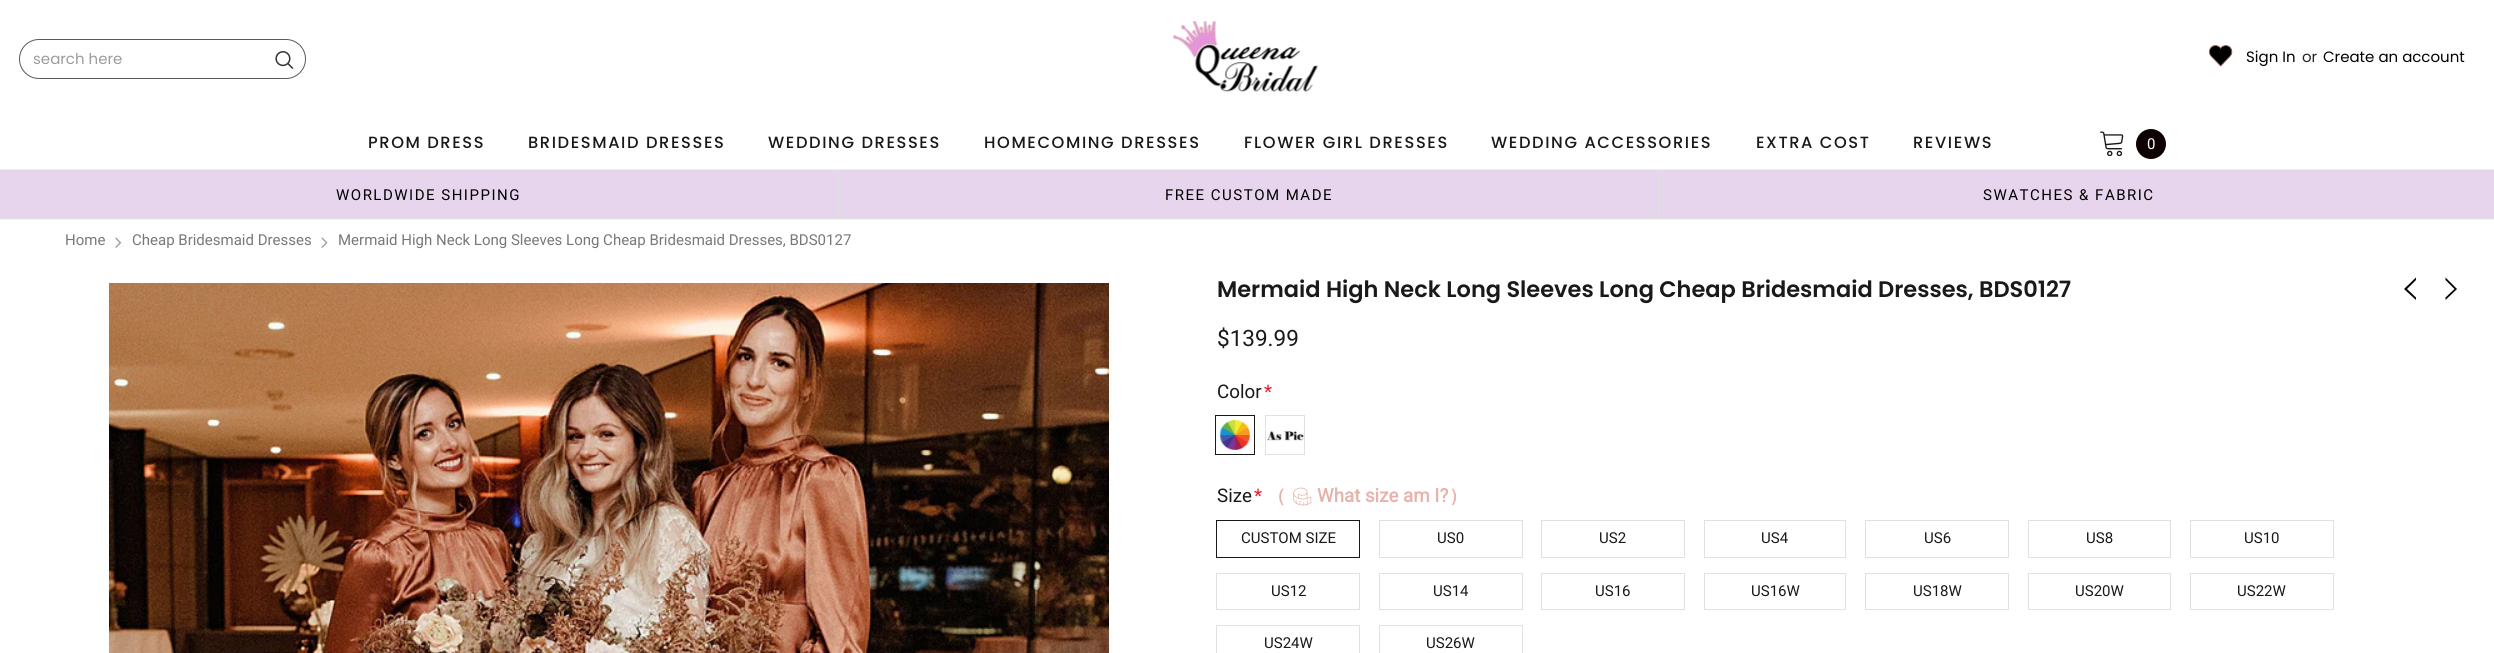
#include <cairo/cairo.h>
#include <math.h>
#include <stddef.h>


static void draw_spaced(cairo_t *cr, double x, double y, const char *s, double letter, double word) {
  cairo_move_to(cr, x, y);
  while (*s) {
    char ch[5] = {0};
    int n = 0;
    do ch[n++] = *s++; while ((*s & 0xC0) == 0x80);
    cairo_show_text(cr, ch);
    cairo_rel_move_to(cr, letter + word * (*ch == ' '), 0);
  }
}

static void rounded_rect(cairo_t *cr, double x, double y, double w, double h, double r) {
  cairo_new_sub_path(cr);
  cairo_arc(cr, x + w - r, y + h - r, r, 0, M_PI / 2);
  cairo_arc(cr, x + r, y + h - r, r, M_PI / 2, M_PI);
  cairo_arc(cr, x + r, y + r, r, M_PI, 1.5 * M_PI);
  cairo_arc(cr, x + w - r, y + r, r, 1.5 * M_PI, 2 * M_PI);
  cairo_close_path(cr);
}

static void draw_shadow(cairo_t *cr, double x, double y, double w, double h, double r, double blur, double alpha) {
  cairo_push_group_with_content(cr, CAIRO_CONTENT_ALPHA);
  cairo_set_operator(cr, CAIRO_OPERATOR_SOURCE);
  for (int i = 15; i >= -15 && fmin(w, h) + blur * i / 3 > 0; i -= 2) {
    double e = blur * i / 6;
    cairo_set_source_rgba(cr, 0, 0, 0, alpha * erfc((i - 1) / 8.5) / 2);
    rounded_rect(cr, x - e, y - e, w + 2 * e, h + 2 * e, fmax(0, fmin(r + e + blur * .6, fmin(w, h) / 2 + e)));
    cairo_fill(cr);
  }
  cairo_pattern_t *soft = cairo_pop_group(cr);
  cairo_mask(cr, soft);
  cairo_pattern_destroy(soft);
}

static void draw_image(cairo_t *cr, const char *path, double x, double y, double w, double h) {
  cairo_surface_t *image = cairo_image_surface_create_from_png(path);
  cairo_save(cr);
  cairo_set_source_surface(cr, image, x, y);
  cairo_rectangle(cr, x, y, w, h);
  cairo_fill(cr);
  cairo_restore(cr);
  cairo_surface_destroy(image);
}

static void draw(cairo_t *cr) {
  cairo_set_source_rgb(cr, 1, 1, 1);
  cairo_paint(cr);
  rounded_rect(cr, 19.5, 39.5, 286, 39, 19.5);
  cairo_set_source_rgb(cr, 90 / 255.0, 90 / 255.0, 90 / 255.0);
  cairo_set_line_width(cr, 1);
  cairo_stroke(cr);
  draw_image(cr, "images/1.png", 275, 51, 19, 18);
  draw_image(cr, "images/2.png", 1172, 21, 146, 71);
  draw_image(cr, "images/3.png", 2209, 45, 24, 22);
  draw_image(cr, "images/4.png", 2100, 131, 24, 25);
  cairo_set_source_rgb(cr, 14 / 255.0, 1 / 255.0, 1 / 255.0);
  cairo_arc(cr, 2151, 144, 15, 0, 2 * M_PI);
  cairo_fill(cr);
  cairo_set_source_rgb(cr, 0, 0, 0);
  draw_shadow(cr, 0, 171, 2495, 48, 0, 1, 0.1);
  cairo_rectangle(cr, -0.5, 169.5, 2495, 49);
  cairo_set_source_rgba(cr, 0, 0, 0, 0.06);
  cairo_stroke(cr);
  cairo_set_source_rgb(cr, 231 / 255.0, 213 / 255.0, 237 / 255.0);
  cairo_rectangle(cr, 0, 170, 2494, 48);
  cairo_fill(cr);
  cairo_set_source_rgb(cr, 224 / 255.0, 224 / 255.0, 224 / 255.0);
  cairo_rectangle(cr, 838, 170, 1, 48);
  cairo_fill(cr);
  cairo_rectangle(cr, 1658, 170, 1, 48);
  cairo_fill(cr);
  draw_image(cr, "images/5.png", 115, 237, 7, 11);
  draw_image(cr, "images/6.png", 321, 237, 7, 11);
  draw_image(cr, "images/7.png", 109, 283, 1000, 370);
  cairo_set_source_rgb(cr, 0, 0, 0);
  cairo_new_path(cr);
  cairo_move_to(cr, 2404, 289);
  cairo_line_to(cr, 2416, 300);
  cairo_line_to(cr, 2416, 297.5);
  cairo_line_to(cr, 2407, 289);
  cairo_line_to(cr, 2416, 280);
  cairo_line_to(cr, 2416, 277.5);
  cairo_close_path(cr);
  cairo_move_to(cr, 2455.5, 287.5);
  cairo_line_to(cr, 2445.5, 277.5);
  cairo_line_to(cr, 2445.5, 280);
  cairo_line_to(cr, 2454.5, 289);
  cairo_line_to(cr, 2445.5, 297.5);
  cairo_line_to(cr, 2445.5, 300);
  cairo_line_to(cr, 2457, 289);
  cairo_close_path(cr);
  cairo_fill(cr);
  cairo_rectangle(cr, 1215.5, 415.5, 39, 39);
  cairo_set_source_rgb(cr, 25 / 255.0, 25 / 255.0, 25 / 255.0);
  cairo_stroke(cr);
  draw_image(cr, "images/8.png", 1220, 420, 30, 30);
  cairo_rectangle(cr, 1265.5, 415.5, 39, 39);
  cairo_set_source_rgb(cr, 225 / 255.0, 225 / 255.0, 225 / 255.0);
  cairo_stroke(cr);
  draw_image(cr, "images/9.png", 1266, 431, 38, 10);
  draw_image(cr, "images/10.png", 1293, 487, 19, 19);
  cairo_rectangle(cr, 1216.5, 520.5, 143, 37);
  cairo_set_source_rgb(cr, 25 / 255.0, 25 / 255.0, 25 / 255.0);
  cairo_stroke(cr);
  cairo_rectangle(cr, 1379.5, 520.5, 143, 37);
  cairo_set_source_rgb(cr, 225 / 255.0, 225 / 255.0, 225 / 255.0);
  cairo_stroke(cr);
  cairo_rectangle(cr, 1541.5, 520.5, 143, 37);
  cairo_stroke(cr);
  cairo_rectangle(cr, 1704.5, 520.5, 141, 37);
  cairo_stroke(cr);
  cairo_rectangle(cr, 1865.5, 520.5, 143, 37);
  cairo_stroke(cr);
  cairo_rectangle(cr, 2028.5, 520.5, 142, 37);
  cairo_stroke(cr);
  cairo_rectangle(cr, 2190.5, 520.5, 143, 37);
  cairo_stroke(cr);
  cairo_rectangle(cr, 1216.5, 573.5, 143, 36);
  cairo_stroke(cr);
  cairo_rectangle(cr, 1379.5, 573.5, 143, 36);
  cairo_stroke(cr);
  cairo_rectangle(cr, 1541.5, 573.5, 143, 36);
  cairo_stroke(cr);
  cairo_rectangle(cr, 1704.5, 573.5, 141, 36);
  cairo_stroke(cr);
  cairo_rectangle(cr, 1865.5, 573.5, 143, 36);
  cairo_stroke(cr);
  cairo_rectangle(cr, 2028.5, 573.5, 142, 36);
  cairo_stroke(cr);
  cairo_rectangle(cr, 2190.5, 573.5, 143, 36);
  cairo_stroke(cr);
  cairo_rectangle(cr, 1216.5, 625.5, 143, 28);
  cairo_stroke(cr);
  cairo_rectangle(cr, 1379.5, 625.5, 143, 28);
  cairo_stroke(cr);
  cairo_select_font_face(cr, "Poppins", CAIRO_FONT_SLANT_NORMAL, CAIRO_FONT_WEIGHT_NORMAL);
  cairo_set_font_size(cr, 15);
  cairo_set_source_rgb(cr, 156 / 255.0, 156 / 255.0, 156 / 255.0);
  cairo_move_to(cr, 33, 64);
  cairo_show_text(cr, "search here");
  cairo_set_source_rgb(cr, 0, 0, 0);
  cairo_move_to(cr, 2246, 62);
  cairo_show_text(cr, "Sign In");
  cairo_set_source_rgb(cr, 33 / 255.0, 37 / 255.0, 41 / 255.0);
  cairo_move_to(cr, 2302, 62);
  cairo_show_text(cr, "or");
  cairo_set_source_rgb(cr, 0, 0, 0);
  cairo_move_to(cr, 2323, 62);
  cairo_show_text(cr, "Create an account");
  cairo_select_font_face(cr, "Poppins Medium", CAIRO_FONT_SLANT_NORMAL, CAIRO_FONT_WEIGHT_NORMAL);
  cairo_set_font_size(cr, 16.25);
  cairo_set_source_rgb(cr, 25 / 255.0, 25 / 255.0, 25 / 255.0);
  draw_spaced(cr, 368, 148, "PROM DRESS", 1.6, 0);
  draw_spaced(cr, 528, 148, "BRIDESMAID DRESSES", 1.6, 0);
  draw_spaced(cr, 768, 148, "WEDDING DRESSES", 1.6, 0);
  draw_spaced(cr, 984, 148, "HOMECOMING DRESSES", 1.6, 0);
  draw_spaced(cr, 1244, 148, "FLOWER GIRL DRESSES", 1.6, 0);
  draw_spaced(cr, 1491, 148, "WEDDING ACCESSORIES", 1.6, 0);
  draw_spaced(cr, 1756, 148, "EXTRA COST", 1.6, 0);
  draw_spaced(cr, 1913, 148, "REVIEWS", 1.6, 0);
  cairo_select_font_face(cr, "Roboto", CAIRO_FONT_SLANT_NORMAL, CAIRO_FONT_WEIGHT_NORMAL);
  cairo_set_font_size(cr, 15);
  cairo_set_source_rgb(cr, 1, 1, 1);
  cairo_move_to(cr, 2147, 149);
  cairo_show_text(cr, "0");
  cairo_set_source_rgb(cr, 0, 0, 0);
  draw_spaced(cr, 336, 200, "WORLDWIDE SHIPPING", 1.5, 0);
  draw_spaced(cr, 1165, 200, "FREE CUSTOM MADE", 1.5, 0);
  draw_spaced(cr, 1983, 200, "SWATCHES & FABRIC", 1.5, 0);
  cairo_set_source_rgb(cr, 120 / 255.0, 120 / 255.0, 120 / 255.0);
  cairo_move_to(cr, 65, 245);
  cairo_show_text(cr, "Home");
  cairo_move_to(cr, 132, 245);
  cairo_show_text(cr, "Cheap Bridesmaid Dresses");
  cairo_move_to(cr, 338, 245);
  cairo_show_text(cr, "Mermaid High Neck Long Sleeves Long Cheap Bridesmaid Dresses, BDS0127");
  cairo_select_font_face(cr, "Poppins SemiBold", CAIRO_FONT_SLANT_NORMAL, CAIRO_FONT_WEIGHT_NORMAL);
  cairo_set_font_size(cr, 22.5);
  cairo_set_source_rgb(cr, 25 / 255.0, 25 / 255.0, 25 / 255.0);
  cairo_move_to(cr, 1217, 297);
  cairo_show_text(cr, "Mermaid High Neck Long Sleeves Long Cheap Bridesmaid Dresses, BDS0127");
  cairo_select_font_face(cr, "Roboto", CAIRO_FONT_SLANT_NORMAL, CAIRO_FONT_WEIGHT_NORMAL);
  cairo_move_to(cr, 1217, 346);
  cairo_show_text(cr, "$139.99");
  cairo_set_font_size(cr, 18.75);
  cairo_move_to(cr, 1217, 398);
  cairo_show_text(cr, "Color");
  cairo_set_source_rgb(cr, 241 / 255.0, 21 / 255.0, 47 / 255.0);
  cairo_move_to(cr, 1264, 398);
  cairo_show_text(cr, "*");
  cairo_set_source_rgb(cr, 25 / 255.0, 25 / 255.0, 25 / 255.0);
  cairo_move_to(cr, 1217, 502);
  cairo_show_text(cr, "Size");
  cairo_set_source_rgb(cr, 241 / 255.0, 21 / 255.0, 47 / 255.0);
  cairo_move_to(cr, 1254, 502);
  cairo_show_text(cr, "*");
  cairo_select_font_face(cr, "WenQuanYi Zen Hei", CAIRO_FONT_SLANT_NORMAL, CAIRO_FONT_WEIGHT_BOLD);
  cairo_set_source_rgb(cr, 229 / 255.0, 179 / 255.0, 172 / 255.0);
  cairo_move_to(cr, 1267, 502);
  cairo_show_text(cr, "（");
  cairo_select_font_face(cr, "Roboto", CAIRO_FONT_SLANT_NORMAL, CAIRO_FONT_WEIGHT_BOLD);
  cairo_move_to(cr, 1317, 502);
  cairo_show_text(cr, "What size am I?");
  cairo_select_font_face(cr, "WenQuanYi Zen Hei", CAIRO_FONT_SLANT_NORMAL, CAIRO_FONT_WEIGHT_BOLD);
  cairo_move_to(cr, 1449, 502);
  cairo_show_text(cr, "）");
  cairo_select_font_face(cr, "Roboto", CAIRO_FONT_SLANT_NORMAL, CAIRO_FONT_WEIGHT_NORMAL);
  cairo_set_font_size(cr, 15);
  cairo_set_source_rgb(cr, 25 / 255.0, 25 / 255.0, 25 / 255.0);
  cairo_move_to(cr, 1241, 543);
  cairo_show_text(cr, "CUSTOM SIZE");
  cairo_move_to(cr, 1437, 543);
  cairo_show_text(cr, "US0");
  cairo_move_to(cr, 1599, 543);
  cairo_show_text(cr, "US2");
  cairo_move_to(cr, 1761, 543);
  cairo_show_text(cr, "US4");
  cairo_move_to(cr, 1924, 543);
  cairo_show_text(cr, "US6");
  cairo_move_to(cr, 2086, 543);
  cairo_show_text(cr, "US8");
  cairo_move_to(cr, 2244, 543);
  cairo_show_text(cr, "US10");
  cairo_move_to(cr, 1271, 596);
  cairo_show_text(cr, "US12");
  cairo_move_to(cr, 1433, 596);
  cairo_show_text(cr, "US14");
  cairo_move_to(cr, 1595, 596);
  cairo_show_text(cr, "US16");
  cairo_move_to(cr, 1751, 596);
  cairo_show_text(cr, "US16W");
  cairo_move_to(cr, 1913, 596);
  cairo_show_text(cr, "US18W");
  cairo_move_to(cr, 2075, 596);
  cairo_show_text(cr, "US20W");
  cairo_move_to(cr, 2237, 596);
  cairo_show_text(cr, "US22W");
  cairo_move_to(cr, 1264, 648);
  cairo_show_text(cr, "US24W");
  cairo_move_to(cr, 1426, 648);
  cairo_show_text(cr, "US26W");
}

int main(void) {
  cairo_surface_t *surface = cairo_image_surface_create(CAIRO_FORMAT_RGB24, 2494, 653);
  cairo_t *cr = cairo_create(surface);
  cairo_font_options_t *options = cairo_font_options_create();
  cairo_font_options_set_hint_metrics(options, CAIRO_HINT_METRICS_OFF);
  cairo_font_options_set_hint_style(options, CAIRO_HINT_STYLE_NONE);
  cairo_set_font_options(cr, options);
  cairo_set_miter_limit(cr, 4);
  draw(cr);
  cairo_surface_write_to_png(surface, "out.png");
  cairo_font_options_destroy(options);
  cairo_destroy(cr);
  cairo_surface_destroy(surface);
  return 0;
}
